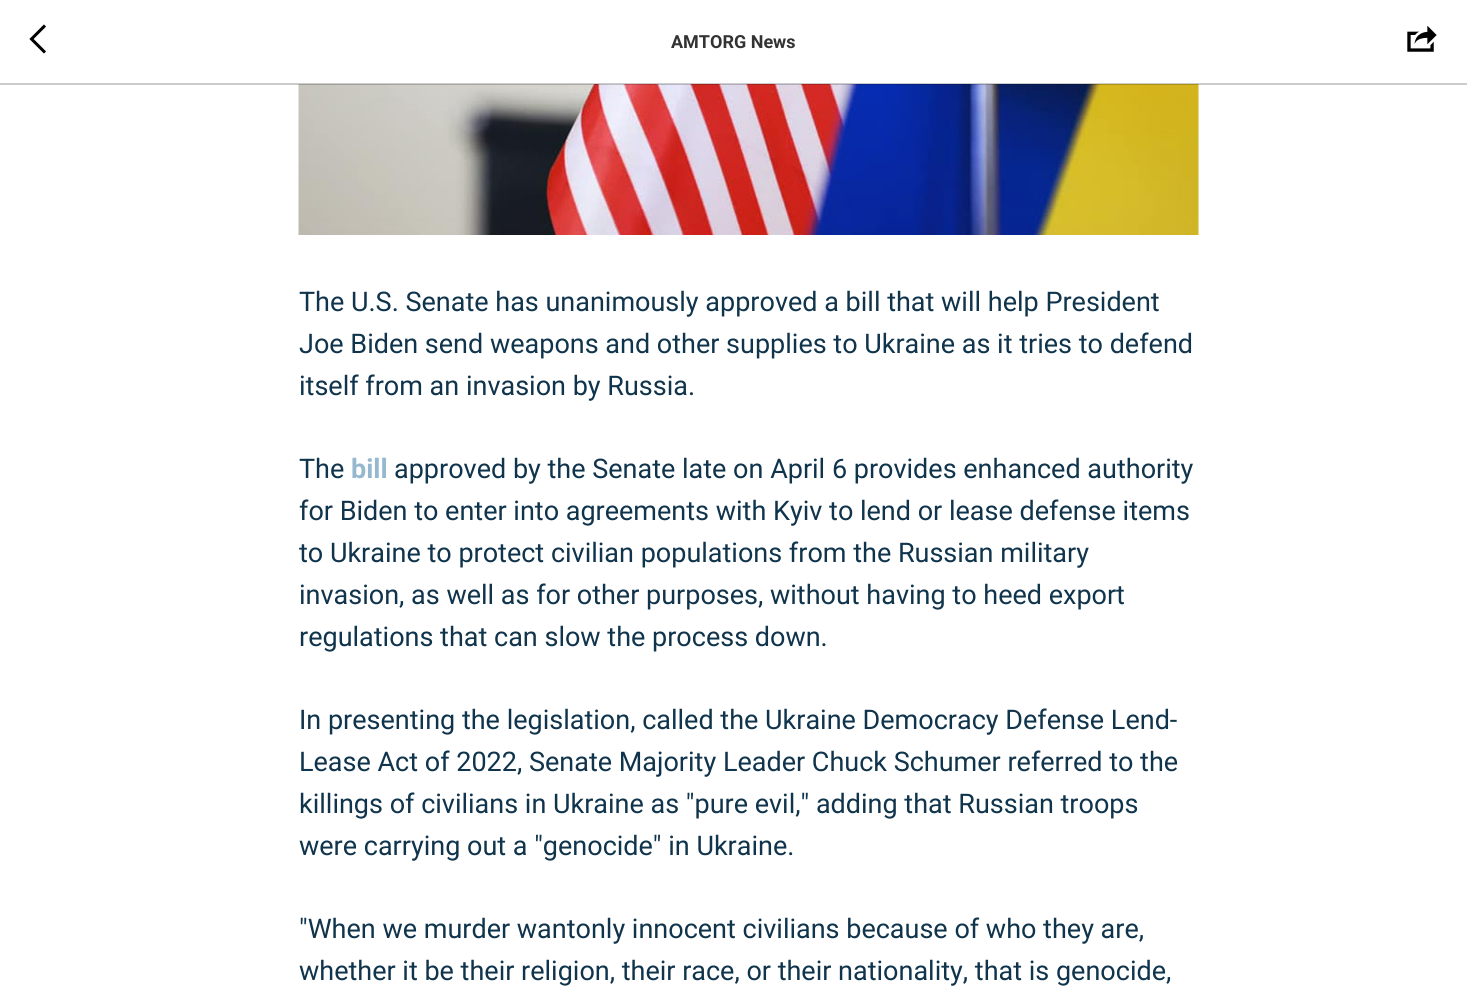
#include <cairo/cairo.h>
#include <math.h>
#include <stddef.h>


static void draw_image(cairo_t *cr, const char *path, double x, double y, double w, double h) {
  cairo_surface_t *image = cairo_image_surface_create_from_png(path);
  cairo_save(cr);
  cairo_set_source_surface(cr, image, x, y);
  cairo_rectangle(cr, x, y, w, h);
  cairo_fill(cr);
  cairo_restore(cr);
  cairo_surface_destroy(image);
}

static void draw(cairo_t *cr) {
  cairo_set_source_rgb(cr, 1, 1, 1);
  cairo_paint(cr);
  draw_image(cr, "images/2.png", 298, 84, 901, 151);
  cairo_set_source_rgba(cr, 0, 0, 0, 0.2);
  cairo_rectangle(cr, 0, 83, 1467, 2);
  cairo_fill(cr);
  cairo_new_path(cr);
  cairo_move_to(cr, 45, 52.5);
  cairo_line_to(cr, 31.5, 39);
  cairo_line_to(cr, 45, 25.5);
  cairo_set_source_rgb(cr, 0, 0, 0);
  cairo_set_line_width(cr, 3);
  cairo_stroke(cr);
  draw_image(cr, "images/1.png", 1407, 26, 30, 26);
  cairo_select_font_face(cr, "Roboto", CAIRO_FONT_SLANT_NORMAL, CAIRO_FONT_WEIGHT_BOLD);
  cairo_set_font_size(cr, 18);
  cairo_set_source_rgb(cr, 51 / 255.0, 51 / 255.0, 51 / 255.0);
  cairo_move_to(cr, 671, 48);
  cairo_show_text(cr, "AMTORG News");
  cairo_select_font_face(cr, "Roboto", CAIRO_FONT_SLANT_NORMAL, CAIRO_FONT_WEIGHT_NORMAL);
  cairo_set_font_size(cr, 27);
  cairo_set_source_rgb(cr, 16 / 255.0, 52 / 255.0, 76 / 255.0);
  cairo_move_to(cr, 299, 311);
  cairo_show_text(cr, "The U.S. Senate has unanimously approved a bill that will help President");
  cairo_move_to(cr, 299, 353);
  cairo_show_text(cr, "Joe Biden send weapons and other supplies to Ukraine as it tries to defend");
  cairo_move_to(cr, 299, 395);
  cairo_show_text(cr, "itself from an invasion by Russia.");
  cairo_move_to(cr, 299, 478);
  cairo_show_text(cr, "The");
  cairo_select_font_face(cr, "Roboto", CAIRO_FONT_SLANT_NORMAL, CAIRO_FONT_WEIGHT_BOLD);
  cairo_set_source_rgb(cr, 150 / 255.0, 184 / 255.0, 207 / 255.0);
  cairo_move_to(cr, 351, 478);
  cairo_show_text(cr, "bill");
  cairo_select_font_face(cr, "Roboto", CAIRO_FONT_SLANT_NORMAL, CAIRO_FONT_WEIGHT_NORMAL);
  cairo_set_source_rgb(cr, 16 / 255.0, 52 / 255.0, 76 / 255.0);
  cairo_move_to(cr, 394, 478);
  cairo_show_text(cr, "approved by the Senate late on April 6 provides enhanced authority");
  cairo_move_to(cr, 299, 520);
  cairo_show_text(cr, "for Biden to enter into agreements with Kyiv to lend or lease defense items");
  cairo_move_to(cr, 299, 562);
  cairo_show_text(cr, "to Ukraine to protect civilian populations from the Russian military");
  cairo_move_to(cr, 299, 604);
  cairo_show_text(cr, "invasion, as well as for other purposes, without having to heed export");
  cairo_move_to(cr, 299, 646);
  cairo_show_text(cr, "regulations that can slow the process down.");
  cairo_move_to(cr, 299, 729);
  cairo_show_text(cr, "In presenting the legislation, called the Ukraine Democracy Defense Lend-");
  cairo_move_to(cr, 299, 771);
  cairo_show_text(cr, "Lease Act of 2022, Senate Majority Leader Chuck Schumer referred to the");
  cairo_move_to(cr, 299, 813);
  cairo_show_text(cr, "killings of civilians in Ukraine as \"pure evil,\" adding that Russian troops");
  cairo_move_to(cr, 299, 855);
  cairo_show_text(cr, "were carrying out a \"genocide\" in Ukraine.");
  cairo_move_to(cr, 299, 938);
  cairo_show_text(cr, "\"When we murder wantonly innocent civilians because of who they are,");
  cairo_move_to(cr, 299, 980);
  cairo_show_text(cr, "whether it be their religion, their race, or their nationality, that is genocide,");
}

int main(void) {
  cairo_surface_t *surface = cairo_image_surface_create(CAIRO_FORMAT_RGB24, 1467, 993);
  cairo_t *cr = cairo_create(surface);
  cairo_font_options_t *options = cairo_font_options_create();
  cairo_font_options_set_hint_metrics(options, CAIRO_HINT_METRICS_OFF);
  cairo_font_options_set_hint_style(options, CAIRO_HINT_STYLE_NONE);
  cairo_set_font_options(cr, options);
  cairo_set_miter_limit(cr, 4);
  draw(cr);
  cairo_surface_write_to_png(surface, "out.png");
  cairo_font_options_destroy(options);
  cairo_destroy(cr);
  cairo_surface_destroy(surface);
  return 0;
}
